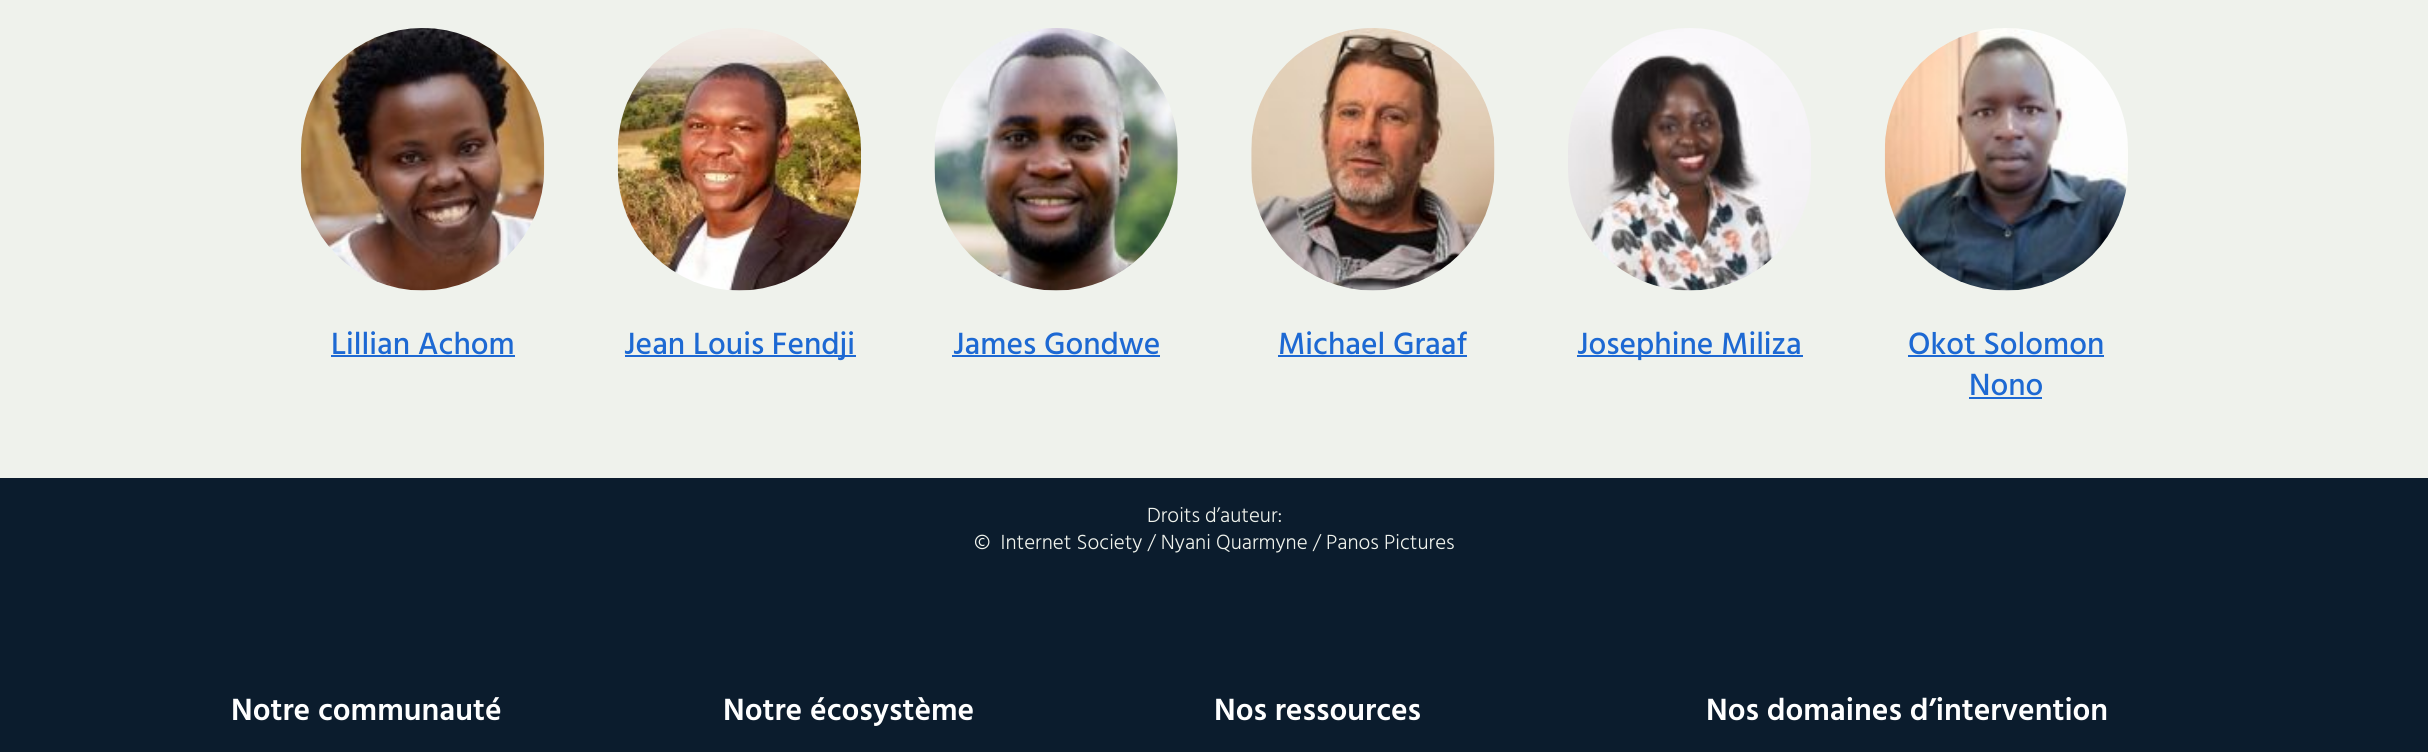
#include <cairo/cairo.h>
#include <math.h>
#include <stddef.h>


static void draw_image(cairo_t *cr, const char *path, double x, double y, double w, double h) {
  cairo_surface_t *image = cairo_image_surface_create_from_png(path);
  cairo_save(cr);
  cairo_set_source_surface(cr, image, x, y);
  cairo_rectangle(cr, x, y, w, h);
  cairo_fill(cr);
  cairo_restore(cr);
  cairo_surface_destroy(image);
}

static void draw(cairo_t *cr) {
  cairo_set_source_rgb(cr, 11 / 255.0, 28 / 255.0, 45 / 255.0);
  cairo_paint(cr);
  cairo_set_source_rgb(cr, 239 / 255.0, 242 / 255.0, 236 / 255.0);
  cairo_rectangle(cr, 0, 0, 2428, 478);
  cairo_fill(cr);
  draw_image(cr, "images/1.png", 301, 28, 244, 263);
  cairo_set_source_rgb(cr, 29 / 255.0, 105 / 255.0, 211 / 255.0);
  cairo_rectangle(cr, 331, 355, 184, 2);
  cairo_fill(cr);
  draw_image(cr, "images/2.png", 617, 28, 244, 263);
  cairo_rectangle(cr, 625, 355, 231, 2);
  cairo_fill(cr);
  draw_image(cr, "images/3.png", 934, 28, 244, 263);
  cairo_rectangle(cr, 952, 355, 208, 2);
  cairo_fill(cr);
  draw_image(cr, "images/4.png", 1251, 28, 244, 263);
  cairo_rectangle(cr, 1278, 355, 189, 2);
  cairo_fill(cr);
  draw_image(cr, "images/5.png", 1568, 28, 243, 263);
  cairo_rectangle(cr, 1577, 355, 226, 2);
  cairo_fill(cr);
  draw_image(cr, "images/6.png", 1884, 28, 244, 263);
  cairo_rectangle(cr, 1908, 355, 196, 2);
  cairo_fill(cr);
  cairo_rectangle(cr, 1969, 397, 73, 2);
  cairo_fill(cr);
  cairo_select_font_face(cr, "Hind Medium", CAIRO_FONT_SLANT_NORMAL, CAIRO_FONT_WEIGHT_NORMAL);
  cairo_set_font_size(cr, 31.5);
  cairo_move_to(cr, 331, 354);
  cairo_show_text(cr, "Lillian Achom");
  cairo_move_to(cr, 624, 354);
  cairo_show_text(cr, "Jean Louis Fendji");
  cairo_move_to(cr, 953, 354);
  cairo_show_text(cr, "James Gondwe");
  cairo_move_to(cr, 1278, 354);
  cairo_show_text(cr, "Michael Graaf");
  cairo_move_to(cr, 1577, 354);
  cairo_show_text(cr, "Josephine Miliza");
  cairo_move_to(cr, 1908, 354);
  cairo_show_text(cr, "Okot Solomon");
  cairo_move_to(cr, 1969, 395);
  cairo_show_text(cr, "Nono");
  cairo_select_font_face(cr, "Hind Light", CAIRO_FONT_SLANT_NORMAL, CAIRO_FONT_WEIGHT_NORMAL);
  cairo_set_font_size(cr, 21);
  cairo_set_source_rgb(cr, 239 / 255.0, 242 / 255.0, 236 / 255.0);
  cairo_move_to(cr, 1147, 522);
  cairo_show_text(cr, "Droits d’auteur:");
  cairo_move_to(cr, 974, 549);
  cairo_show_text(cr, "©  Internet Society / Nyani Quarmyne / Panos Pictures");
  cairo_select_font_face(cr, "Hind SemiBold", CAIRO_FONT_SLANT_NORMAL, CAIRO_FONT_WEIGHT_NORMAL);
  cairo_set_font_size(cr, 31.5);
  cairo_set_source_rgb(cr, 1, 1, 1);
  cairo_move_to(cr, 231, 720);
  cairo_show_text(cr, "Notre communauté");
  cairo_move_to(cr, 723, 720);
  cairo_show_text(cr, "Notre écosystème");
  cairo_move_to(cr, 1214, 720);
  cairo_show_text(cr, "Nos ressources");
  cairo_move_to(cr, 1706, 720);
  cairo_show_text(cr, "Nos domaines d’intervention");
}

int main(void) {
  cairo_surface_t *surface = cairo_image_surface_create(CAIRO_FORMAT_RGB24, 2428, 752);
  cairo_t *cr = cairo_create(surface);
  cairo_font_options_t *options = cairo_font_options_create();
  cairo_font_options_set_hint_metrics(options, CAIRO_HINT_METRICS_OFF);
  cairo_font_options_set_hint_style(options, CAIRO_HINT_STYLE_NONE);
  cairo_set_font_options(cr, options);
  cairo_set_miter_limit(cr, 4);
  draw(cr);
  cairo_surface_write_to_png(surface, "out.png");
  cairo_font_options_destroy(options);
  cairo_destroy(cr);
  cairo_surface_destroy(surface);
  return 0;
}
